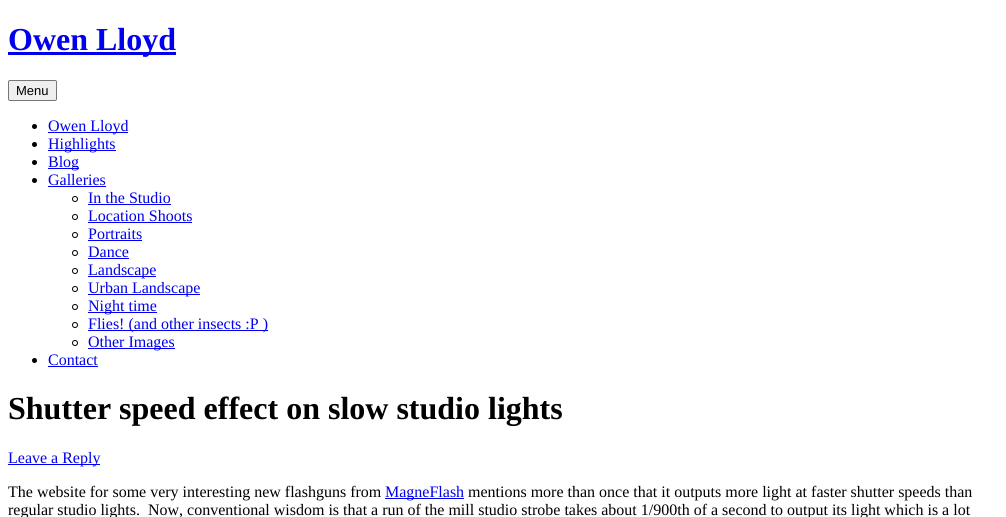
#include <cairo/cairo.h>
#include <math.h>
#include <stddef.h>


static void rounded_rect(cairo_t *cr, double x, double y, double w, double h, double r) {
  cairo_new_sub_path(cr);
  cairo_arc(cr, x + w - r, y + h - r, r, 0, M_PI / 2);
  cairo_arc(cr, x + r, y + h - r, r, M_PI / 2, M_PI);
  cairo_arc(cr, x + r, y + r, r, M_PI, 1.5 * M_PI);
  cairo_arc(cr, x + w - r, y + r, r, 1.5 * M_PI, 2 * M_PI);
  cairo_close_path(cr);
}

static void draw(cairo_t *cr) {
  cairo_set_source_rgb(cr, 1, 1, 1);
  cairo_paint(cr);
  cairo_set_source_rgb(cr, 0, 0, 238 / 255.0);
  cairo_rectangle(cr, 8, 52, 168, 3);
  cairo_fill(cr);
  cairo_set_source_rgb(cr, 239 / 255.0, 239 / 255.0, 239 / 255.0);
  rounded_rect(cr, 8.5, 80.5, 48, 20, 1.5);
  cairo_fill_preserve(cr);
  cairo_set_source_rgb(cr, 118 / 255.0, 118 / 255.0, 118 / 255.0);
  cairo_set_line_width(cr, 1);
  cairo_stroke(cr);
  cairo_set_source_rgb(cr, 0, 0, 0);
  cairo_arc(cr, 34.5, 126.5, 2.5, 0, 2 * M_PI);
  cairo_fill(cr);
  cairo_set_source_rgb(cr, 0, 0, 238 / 255.0);
  cairo_rectangle(cr, 48, 132, 80, 1);
  cairo_fill(cr);
  cairo_set_source_rgb(cr, 0, 0, 0);
  cairo_arc(cr, 34.5, 144.5, 2.5, 0, 2 * M_PI);
  cairo_fill(cr);
  cairo_set_source_rgb(cr, 0, 0, 238 / 255.0);
  cairo_rectangle(cr, 48, 150, 68, 1);
  cairo_fill(cr);
  cairo_set_source_rgb(cr, 0, 0, 0);
  cairo_arc(cr, 34.5, 162.5, 2.5, 0, 2 * M_PI);
  cairo_fill(cr);
  cairo_set_source_rgb(cr, 0, 0, 238 / 255.0);
  cairo_rectangle(cr, 48, 168, 31, 1);
  cairo_fill(cr);
  cairo_set_source_rgb(cr, 0, 0, 0);
  cairo_arc(cr, 34.5, 180.5, 2.5, 0, 2 * M_PI);
  cairo_fill(cr);
  cairo_set_source_rgb(cr, 0, 0, 238 / 255.0);
  cairo_rectangle(cr, 48, 186, 58, 1);
  cairo_fill(cr);
  cairo_arc(cr, 75, 199, 2.5, 0, 2 * M_PI);
  cairo_set_source_rgb(cr, 0, 0, 0);
  cairo_stroke(cr);
  cairo_set_source_rgb(cr, 0, 0, 238 / 255.0);
  cairo_rectangle(cr, 88, 204, 83, 1);
  cairo_fill(cr);
  cairo_arc(cr, 75, 217, 2.5, 0, 2 * M_PI);
  cairo_set_source_rgb(cr, 0, 0, 0);
  cairo_stroke(cr);
  cairo_set_source_rgb(cr, 0, 0, 238 / 255.0);
  cairo_rectangle(cr, 88, 222, 104, 1);
  cairo_fill(cr);
  cairo_arc(cr, 75, 235, 2.5, 0, 2 * M_PI);
  cairo_set_source_rgb(cr, 0, 0, 0);
  cairo_stroke(cr);
  cairo_set_source_rgb(cr, 0, 0, 238 / 255.0);
  cairo_rectangle(cr, 88, 240, 54, 1);
  cairo_fill(cr);
  cairo_arc(cr, 75, 253, 2.5, 0, 2 * M_PI);
  cairo_set_source_rgb(cr, 0, 0, 0);
  cairo_stroke(cr);
  cairo_set_source_rgb(cr, 0, 0, 238 / 255.0);
  cairo_rectangle(cr, 88, 258, 41, 1);
  cairo_fill(cr);
  cairo_arc(cr, 75, 271, 2.5, 0, 2 * M_PI);
  cairo_set_source_rgb(cr, 0, 0, 0);
  cairo_stroke(cr);
  cairo_set_source_rgb(cr, 0, 0, 238 / 255.0);
  cairo_rectangle(cr, 88, 276, 68, 1);
  cairo_fill(cr);
  cairo_arc(cr, 75, 289, 2.5, 0, 2 * M_PI);
  cairo_set_source_rgb(cr, 0, 0, 0);
  cairo_stroke(cr);
  cairo_set_source_rgb(cr, 0, 0, 238 / 255.0);
  cairo_rectangle(cr, 88, 294, 112, 1);
  cairo_fill(cr);
  cairo_arc(cr, 75, 307, 2.5, 0, 2 * M_PI);
  cairo_set_source_rgb(cr, 0, 0, 0);
  cairo_stroke(cr);
  cairo_set_source_rgb(cr, 0, 0, 238 / 255.0);
  cairo_rectangle(cr, 88, 312, 69, 1);
  cairo_fill(cr);
  cairo_arc(cr, 75, 325, 2.5, 0, 2 * M_PI);
  cairo_set_source_rgb(cr, 0, 0, 0);
  cairo_stroke(cr);
  cairo_set_source_rgb(cr, 0, 0, 238 / 255.0);
  cairo_rectangle(cr, 88, 330, 180, 1);
  cairo_fill(cr);
  cairo_arc(cr, 75, 343, 2.5, 0, 2 * M_PI);
  cairo_set_source_rgb(cr, 0, 0, 0);
  cairo_stroke(cr);
  cairo_set_source_rgb(cr, 0, 0, 238 / 255.0);
  cairo_rectangle(cr, 88, 348, 87, 1);
  cairo_fill(cr);
  cairo_set_source_rgb(cr, 0, 0, 0);
  cairo_arc(cr, 34.5, 360.5, 2.5, 0, 2 * M_PI);
  cairo_fill(cr);
  cairo_set_source_rgb(cr, 0, 0, 238 / 255.0);
  cairo_rectangle(cr, 48, 366, 50, 1);
  cairo_fill(cr);
  cairo_rectangle(cr, 8, 464, 92, 1);
  cairo_fill(cr);
  cairo_rectangle(cr, 385, 498, 79, 1);
  cairo_fill(cr);
  cairo_select_font_face(cr, "Liberation Serif", CAIRO_FONT_SLANT_NORMAL, CAIRO_FONT_WEIGHT_BOLD);
  cairo_set_font_size(cr, 32);
  cairo_move_to(cr, 8, 50);
  cairo_show_text(cr, "Owen Lloyd");
  cairo_select_font_face(cr, "Liberation Sans", CAIRO_FONT_SLANT_NORMAL, CAIRO_FONT_WEIGHT_NORMAL);
  cairo_set_font_size(cr, 13);
  cairo_set_source_rgb(cr, 0, 0, 0);
  cairo_move_to(cr, 16, 95);
  cairo_show_text(cr, "Menu");
  cairo_select_font_face(cr, "Liberation Serif", CAIRO_FONT_SLANT_NORMAL, CAIRO_FONT_WEIGHT_NORMAL);
  cairo_set_font_size(cr, 16);
  cairo_set_source_rgb(cr, 0, 0, 238 / 255.0);
  cairo_move_to(cr, 48, 131);
  cairo_show_text(cr, "Owen Lloyd");
  cairo_move_to(cr, 48, 149);
  cairo_show_text(cr, "Highlights");
  cairo_move_to(cr, 48, 167);
  cairo_show_text(cr, "Blog");
  cairo_move_to(cr, 48, 185);
  cairo_show_text(cr, "Galleries");
  cairo_move_to(cr, 88, 203);
  cairo_show_text(cr, "In the Studio");
  cairo_move_to(cr, 88, 221);
  cairo_show_text(cr, "Location Shoots");
  cairo_move_to(cr, 88, 239);
  cairo_show_text(cr, "Portraits");
  cairo_move_to(cr, 88, 257);
  cairo_show_text(cr, "Dance");
  cairo_move_to(cr, 88, 275);
  cairo_show_text(cr, "Landscape");
  cairo_move_to(cr, 88, 293);
  cairo_show_text(cr, "Urban Landscape");
  cairo_move_to(cr, 88, 311);
  cairo_show_text(cr, "Night time");
  cairo_move_to(cr, 88, 329);
  cairo_show_text(cr, "Flies! (and other insects :P )");
  cairo_move_to(cr, 88, 347);
  cairo_show_text(cr, "Other Images");
  cairo_move_to(cr, 48, 365);
  cairo_show_text(cr, "Contact");
  cairo_select_font_face(cr, "Liberation Serif", CAIRO_FONT_SLANT_NORMAL, CAIRO_FONT_WEIGHT_BOLD);
  cairo_set_font_size(cr, 32);
  cairo_set_source_rgb(cr, 0, 0, 0);
  cairo_move_to(cr, 8, 419);
  cairo_show_text(cr, "Shutter speed effect on slow studio lights");
  cairo_select_font_face(cr, "Liberation Serif", CAIRO_FONT_SLANT_NORMAL, CAIRO_FONT_WEIGHT_NORMAL);
  cairo_set_font_size(cr, 16);
  cairo_set_source_rgb(cr, 0, 0, 238 / 255.0);
  cairo_move_to(cr, 8, 463);
  cairo_show_text(cr, "Leave a Reply");
  cairo_set_source_rgb(cr, 0, 0, 0);
  cairo_move_to(cr, 8, 497);
  cairo_show_text(cr, "The website for some very interesting new flashguns from");
  cairo_set_source_rgb(cr, 0, 0, 238 / 255.0);
  cairo_move_to(cr, 385, 497);
  cairo_show_text(cr, "MagneFlash");
  cairo_set_source_rgb(cr, 0, 0, 0);
  cairo_move_to(cr, 468, 497);
  cairo_show_text(cr, "mentions more than once that it outputs more light at faster shutter speeds than");
  cairo_move_to(cr, 8, 515);
  cairo_show_text(cr, "regular studio lights.  Now, conventional wisdom is that a run of the mill studio strobe takes about 1/900th of a second to output its light which is a lot");
}

int main(void) {
  cairo_surface_t *surface = cairo_image_surface_create(CAIRO_FORMAT_RGB24, 1006, 517);
  cairo_t *cr = cairo_create(surface);
  cairo_font_options_t *options = cairo_font_options_create();
  cairo_font_options_set_hint_metrics(options, CAIRO_HINT_METRICS_OFF);
  cairo_font_options_set_hint_style(options, CAIRO_HINT_STYLE_NONE);
  cairo_set_font_options(cr, options);
  cairo_set_miter_limit(cr, 4);
  draw(cr);
  cairo_surface_write_to_png(surface, "out.png");
  cairo_font_options_destroy(options);
  cairo_destroy(cr);
  cairo_surface_destroy(surface);
  return 0;
}
